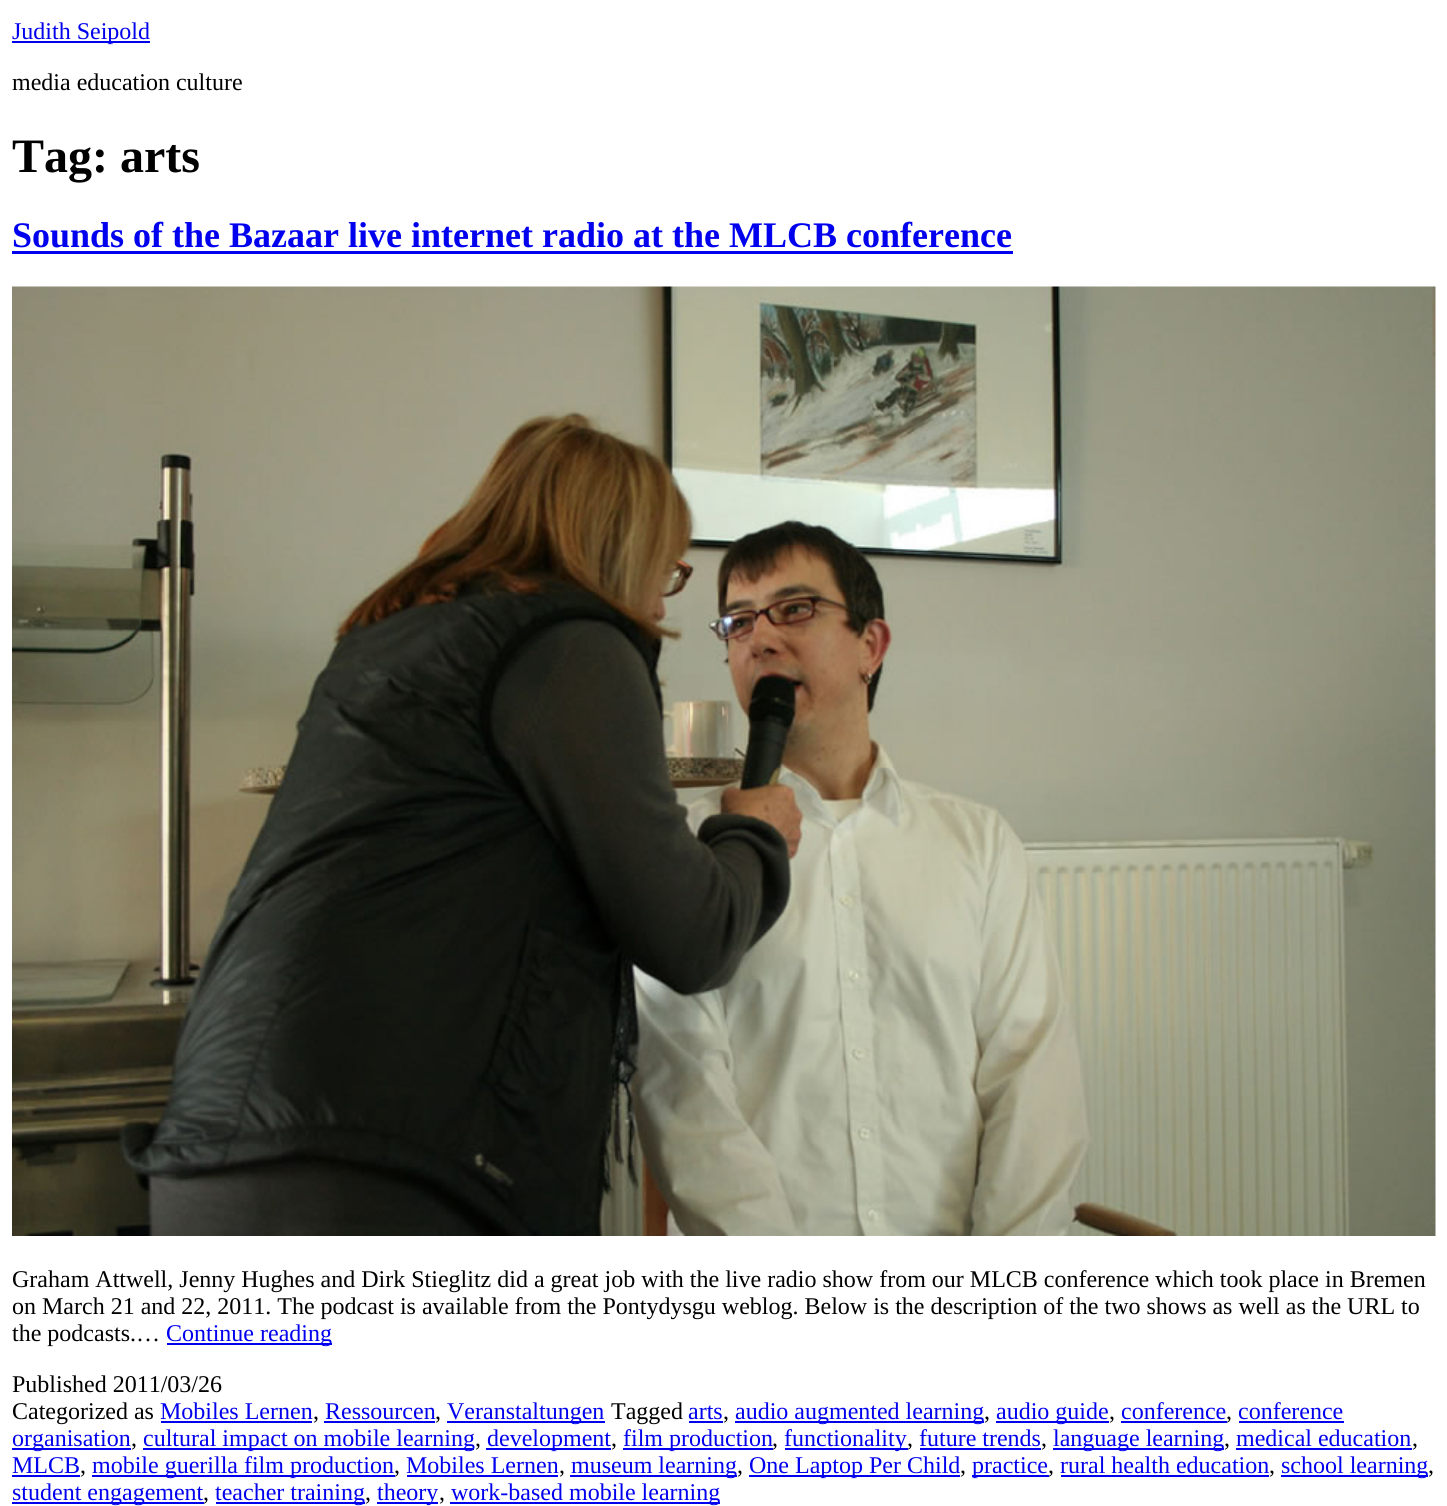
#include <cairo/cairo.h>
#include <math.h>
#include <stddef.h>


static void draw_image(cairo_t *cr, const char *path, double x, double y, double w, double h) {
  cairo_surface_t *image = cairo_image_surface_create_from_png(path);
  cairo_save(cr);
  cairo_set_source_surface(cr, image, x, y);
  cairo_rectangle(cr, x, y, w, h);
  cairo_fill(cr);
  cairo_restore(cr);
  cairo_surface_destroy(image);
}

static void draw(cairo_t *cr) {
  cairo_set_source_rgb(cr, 1, 1, 1);
  cairo_paint(cr);
  cairo_set_source_rgb(cr, 0, 0, 238 / 255.0);
  cairo_rectangle(cr, 12, 41, 138, 2);
  cairo_fill(cr);
  cairo_rectangle(cr, 12, 251, 1001, 3);
  cairo_fill(cr);
  draw_image(cr, "images/1.png", 12, 286, 1424, 950);
  cairo_rectangle(cr, 167, 1343, 165, 2);
  cairo_fill(cr);
  cairo_rectangle(cr, 161, 1421, 151, 2);
  cairo_fill(cr);
  cairo_rectangle(cr, 324, 1421, 111, 2);
  cairo_fill(cr);
  cairo_rectangle(cr, 447, 1421, 158, 2);
  cairo_fill(cr);
  cairo_rectangle(cr, 689, 1421, 34, 2);
  cairo_fill(cr);
  cairo_rectangle(cr, 735, 1421, 249, 2);
  cairo_fill(cr);
  cairo_rectangle(cr, 996, 1421, 113, 2);
  cairo_fill(cr);
  cairo_rectangle(cr, 1121, 1421, 106, 2);
  cairo_fill(cr);
  cairo_rectangle(cr, 1239, 1421, 105, 2);
  cairo_fill(cr);
  cairo_rectangle(cr, 12, 1448, 119, 2);
  cairo_fill(cr);
  cairo_rectangle(cr, 143, 1448, 331, 2);
  cairo_fill(cr);
  cairo_rectangle(cr, 486, 1448, 125, 2);
  cairo_fill(cr);
  cairo_rectangle(cr, 623, 1448, 150, 2);
  cairo_fill(cr);
  cairo_rectangle(cr, 785, 1448, 123, 2);
  cairo_fill(cr);
  cairo_rectangle(cr, 920, 1448, 121, 2);
  cairo_fill(cr);
  cairo_rectangle(cr, 1053, 1448, 171, 2);
  cairo_fill(cr);
  cairo_rectangle(cr, 1236, 1448, 176, 2);
  cairo_fill(cr);
  cairo_rectangle(cr, 12, 1475, 68, 2);
  cairo_fill(cr);
  cairo_rectangle(cr, 92, 1475, 303, 2);
  cairo_fill(cr);
  cairo_rectangle(cr, 407, 1475, 151, 2);
  cairo_fill(cr);
  cairo_rectangle(cr, 570, 1475, 167, 2);
  cairo_fill(cr);
  cairo_rectangle(cr, 749, 1475, 211, 2);
  cairo_fill(cr);
  cairo_rectangle(cr, 972, 1475, 77, 2);
  cairo_fill(cr);
  cairo_rectangle(cr, 1061, 1475, 208, 2);
  cairo_fill(cr);
  cairo_rectangle(cr, 1281, 1475, 147, 2);
  cairo_fill(cr);
  cairo_rectangle(cr, 12, 1502, 192, 2);
  cairo_fill(cr);
  cairo_rectangle(cr, 216, 1502, 149, 2);
  cairo_fill(cr);
  cairo_rectangle(cr, 377, 1502, 61, 2);
  cairo_fill(cr);
  cairo_rectangle(cr, 450, 1502, 270, 2);
  cairo_fill(cr);
  cairo_select_font_face(cr, "Liberation Serif", CAIRO_FONT_SLANT_NORMAL, CAIRO_FONT_WEIGHT_NORMAL);
  cairo_set_font_size(cr, 24);
  cairo_move_to(cr, 12, 39);
  cairo_show_text(cr, "Judith Seipold");
  cairo_set_source_rgb(cr, 0, 0, 0);
  cairo_move_to(cr, 12, 90);
  cairo_show_text(cr, "media education culture");
  cairo_select_font_face(cr, "Liberation Serif", CAIRO_FONT_SLANT_NORMAL, CAIRO_FONT_WEIGHT_BOLD);
  cairo_set_font_size(cr, 48);
  cairo_move_to(cr, 12, 172);
  cairo_show_text(cr, "Tag: arts");
  cairo_set_font_size(cr, 36);
  cairo_set_source_rgb(cr, 0, 0, 238 / 255.0);
  cairo_move_to(cr, 12, 247);
  cairo_show_text(cr, "Sounds of the Bazaar live internet radio at the MLCB conference");
  cairo_select_font_face(cr, "Liberation Serif", CAIRO_FONT_SLANT_NORMAL, CAIRO_FONT_WEIGHT_NORMAL);
  cairo_set_font_size(cr, 24);
  cairo_set_source_rgb(cr, 0, 0, 0);
  cairo_move_to(cr, 12, 1287);
  cairo_show_text(cr, "Graham Attwell, Jenny Hughes and Dirk Stieglitz did a great job with the live radio show from our MLCB conference which took place in Bremen");
  cairo_move_to(cr, 12, 1314);
  cairo_show_text(cr, "on March 21 and 22, 2011. The podcast is available from the Pontydysgu weblog. Below is the description of the two shows as well as the URL to");
  cairo_move_to(cr, 12, 1341);
  cairo_show_text(cr, "the podcasts.…");
  cairo_set_source_rgb(cr, 0, 0, 238 / 255.0);
  cairo_move_to(cr, 166, 1341);
  cairo_show_text(cr, "Continue reading");
  cairo_set_source_rgb(cr, 0, 0, 0);
  cairo_move_to(cr, 12, 1392);
  cairo_show_text(cr, "Published 2011/03/26");
  cairo_move_to(cr, 12, 1419);
  cairo_show_text(cr, "Categorized as");
  cairo_set_source_rgb(cr, 0, 0, 238 / 255.0);
  cairo_move_to(cr, 160, 1419);
  cairo_show_text(cr, "Mobiles Lernen");
  cairo_set_source_rgb(cr, 0, 0, 0);
  cairo_move_to(cr, 313, 1419);
  cairo_show_text(cr, ",");
  cairo_set_source_rgb(cr, 0, 0, 238 / 255.0);
  cairo_move_to(cr, 325, 1419);
  cairo_show_text(cr, "Ressourcen");
  cairo_set_source_rgb(cr, 0, 0, 0);
  cairo_move_to(cr, 435, 1419);
  cairo_show_text(cr, ",");
  cairo_set_source_rgb(cr, 0, 0, 238 / 255.0);
  cairo_move_to(cr, 447, 1419);
  cairo_show_text(cr, "Veranstaltungen");
  cairo_set_source_rgb(cr, 0, 0, 0);
  cairo_move_to(cr, 611, 1419);
  cairo_show_text(cr, "Tagged");
  cairo_set_source_rgb(cr, 0, 0, 238 / 255.0);
  cairo_move_to(cr, 688, 1419);
  cairo_show_text(cr, "arts");
  cairo_set_source_rgb(cr, 0, 0, 0);
  cairo_move_to(cr, 723, 1419);
  cairo_show_text(cr, ",");
  cairo_set_source_rgb(cr, 0, 0, 238 / 255.0);
  cairo_move_to(cr, 735, 1419);
  cairo_show_text(cr, "audio augmented learning");
  cairo_set_source_rgb(cr, 0, 0, 0);
  cairo_move_to(cr, 984, 1419);
  cairo_show_text(cr, ",");
  cairo_set_source_rgb(cr, 0, 0, 238 / 255.0);
  cairo_move_to(cr, 996, 1419);
  cairo_show_text(cr, "audio guide");
  cairo_set_source_rgb(cr, 0, 0, 0);
  cairo_move_to(cr, 1109, 1419);
  cairo_show_text(cr, ",");
  cairo_set_source_rgb(cr, 0, 0, 238 / 255.0);
  cairo_move_to(cr, 1121, 1419);
  cairo_show_text(cr, "conference");
  cairo_set_source_rgb(cr, 0, 0, 0);
  cairo_move_to(cr, 1226, 1419);
  cairo_show_text(cr, ",");
  cairo_set_source_rgb(cr, 0, 0, 238 / 255.0);
  cairo_move_to(cr, 1238, 1419);
  cairo_show_text(cr, "conference");
  cairo_move_to(cr, 12, 1446);
  cairo_show_text(cr, "organisation");
  cairo_set_source_rgb(cr, 0, 0, 0);
  cairo_move_to(cr, 131, 1446);
  cairo_show_text(cr, ",");
  cairo_set_source_rgb(cr, 0, 0, 238 / 255.0);
  cairo_move_to(cr, 143, 1446);
  cairo_show_text(cr, "cultural impact on mobile learning");
  cairo_set_source_rgb(cr, 0, 0, 0);
  cairo_move_to(cr, 475, 1446);
  cairo_show_text(cr, ",");
  cairo_set_source_rgb(cr, 0, 0, 238 / 255.0);
  cairo_move_to(cr, 487, 1446);
  cairo_show_text(cr, "development");
  cairo_set_source_rgb(cr, 0, 0, 0);
  cairo_move_to(cr, 611, 1446);
  cairo_show_text(cr, ",");
  cairo_set_source_rgb(cr, 0, 0, 238 / 255.0);
  cairo_move_to(cr, 623, 1446);
  cairo_show_text(cr, "film production");
  cairo_set_source_rgb(cr, 0, 0, 0);
  cairo_move_to(cr, 772, 1446);
  cairo_show_text(cr, ",");
  cairo_set_source_rgb(cr, 0, 0, 238 / 255.0);
  cairo_move_to(cr, 784, 1446);
  cairo_show_text(cr, "functionality");
  cairo_set_source_rgb(cr, 0, 0, 0);
  cairo_move_to(cr, 907, 1446);
  cairo_show_text(cr, ",");
  cairo_set_source_rgb(cr, 0, 0, 238 / 255.0);
  cairo_move_to(cr, 919, 1446);
  cairo_show_text(cr, "future trends");
  cairo_set_source_rgb(cr, 0, 0, 0);
  cairo_move_to(cr, 1041, 1446);
  cairo_show_text(cr, ",");
  cairo_set_source_rgb(cr, 0, 0, 238 / 255.0);
  cairo_move_to(cr, 1053, 1446);
  cairo_show_text(cr, "language learning");
  cairo_set_source_rgb(cr, 0, 0, 0);
  cairo_move_to(cr, 1224, 1446);
  cairo_show_text(cr, ",");
  cairo_set_source_rgb(cr, 0, 0, 238 / 255.0);
  cairo_move_to(cr, 1236, 1446);
  cairo_show_text(cr, "medical education");
  cairo_set_source_rgb(cr, 0, 0, 0);
  cairo_move_to(cr, 1412, 1446);
  cairo_show_text(cr, ",");
  cairo_set_source_rgb(cr, 0, 0, 238 / 255.0);
  cairo_move_to(cr, 12, 1473);
  cairo_show_text(cr, "MLCB");
  cairo_set_source_rgb(cr, 0, 0, 0);
  cairo_move_to(cr, 80, 1473);
  cairo_show_text(cr, ",");
  cairo_set_source_rgb(cr, 0, 0, 238 / 255.0);
  cairo_move_to(cr, 92, 1473);
  cairo_show_text(cr, "mobile guerilla film production");
  cairo_set_source_rgb(cr, 0, 0, 0);
  cairo_move_to(cr, 394, 1473);
  cairo_show_text(cr, ",");
  cairo_set_source_rgb(cr, 0, 0, 238 / 255.0);
  cairo_move_to(cr, 406, 1473);
  cairo_show_text(cr, "Mobiles Lernen");
  cairo_set_source_rgb(cr, 0, 0, 0);
  cairo_move_to(cr, 559, 1473);
  cairo_show_text(cr, ",");
  cairo_set_source_rgb(cr, 0, 0, 238 / 255.0);
  cairo_move_to(cr, 571, 1473);
  cairo_show_text(cr, "museum learning");
  cairo_set_source_rgb(cr, 0, 0, 0);
  cairo_move_to(cr, 737, 1473);
  cairo_show_text(cr, ",");
  cairo_set_source_rgb(cr, 0, 0, 238 / 255.0);
  cairo_move_to(cr, 749, 1473);
  cairo_show_text(cr, "One Laptop Per Child");
  cairo_set_source_rgb(cr, 0, 0, 0);
  cairo_move_to(cr, 960, 1473);
  cairo_show_text(cr, ",");
  cairo_set_source_rgb(cr, 0, 0, 238 / 255.0);
  cairo_move_to(cr, 972, 1473);
  cairo_show_text(cr, "practice");
  cairo_set_source_rgb(cr, 0, 0, 0);
  cairo_move_to(cr, 1048, 1473);
  cairo_show_text(cr, ",");
  cairo_set_source_rgb(cr, 0, 0, 238 / 255.0);
  cairo_move_to(cr, 1060, 1473);
  cairo_show_text(cr, "rural health education");
  cairo_set_source_rgb(cr, 0, 0, 0);
  cairo_move_to(cr, 1269, 1473);
  cairo_show_text(cr, ",");
  cairo_set_source_rgb(cr, 0, 0, 238 / 255.0);
  cairo_move_to(cr, 1281, 1473);
  cairo_show_text(cr, "school learning");
  cairo_set_source_rgb(cr, 0, 0, 0);
  cairo_move_to(cr, 1428, 1473);
  cairo_show_text(cr, ",");
  cairo_set_source_rgb(cr, 0, 0, 238 / 255.0);
  cairo_move_to(cr, 12, 1500);
  cairo_show_text(cr, "student engagement");
  cairo_set_source_rgb(cr, 0, 0, 0);
  cairo_move_to(cr, 203, 1500);
  cairo_show_text(cr, ",");
  cairo_set_source_rgb(cr, 0, 0, 238 / 255.0);
  cairo_move_to(cr, 215, 1500);
  cairo_show_text(cr, "teacher training");
  cairo_set_source_rgb(cr, 0, 0, 0);
  cairo_move_to(cr, 365, 1500);
  cairo_show_text(cr, ",");
  cairo_set_source_rgb(cr, 0, 0, 238 / 255.0);
  cairo_move_to(cr, 377, 1500);
  cairo_show_text(cr, "theory");
  cairo_set_source_rgb(cr, 0, 0, 0);
  cairo_move_to(cr, 439, 1500);
  cairo_show_text(cr, ",");
  cairo_set_source_rgb(cr, 0, 0, 238 / 255.0);
  cairo_move_to(cr, 451, 1500);
  cairo_show_text(cr, "work-based mobile learning");
}

int main(void) {
  cairo_surface_t *surface = cairo_image_surface_create(CAIRO_FORMAT_RGB24, 1447, 1506);
  cairo_t *cr = cairo_create(surface);
  cairo_font_options_t *options = cairo_font_options_create();
  cairo_font_options_set_hint_metrics(options, CAIRO_HINT_METRICS_OFF);
  cairo_font_options_set_hint_style(options, CAIRO_HINT_STYLE_NONE);
  cairo_set_font_options(cr, options);
  cairo_set_miter_limit(cr, 4);
  draw(cr);
  cairo_surface_write_to_png(surface, "out.png");
  cairo_font_options_destroy(options);
  cairo_destroy(cr);
  cairo_surface_destroy(surface);
  return 0;
}
